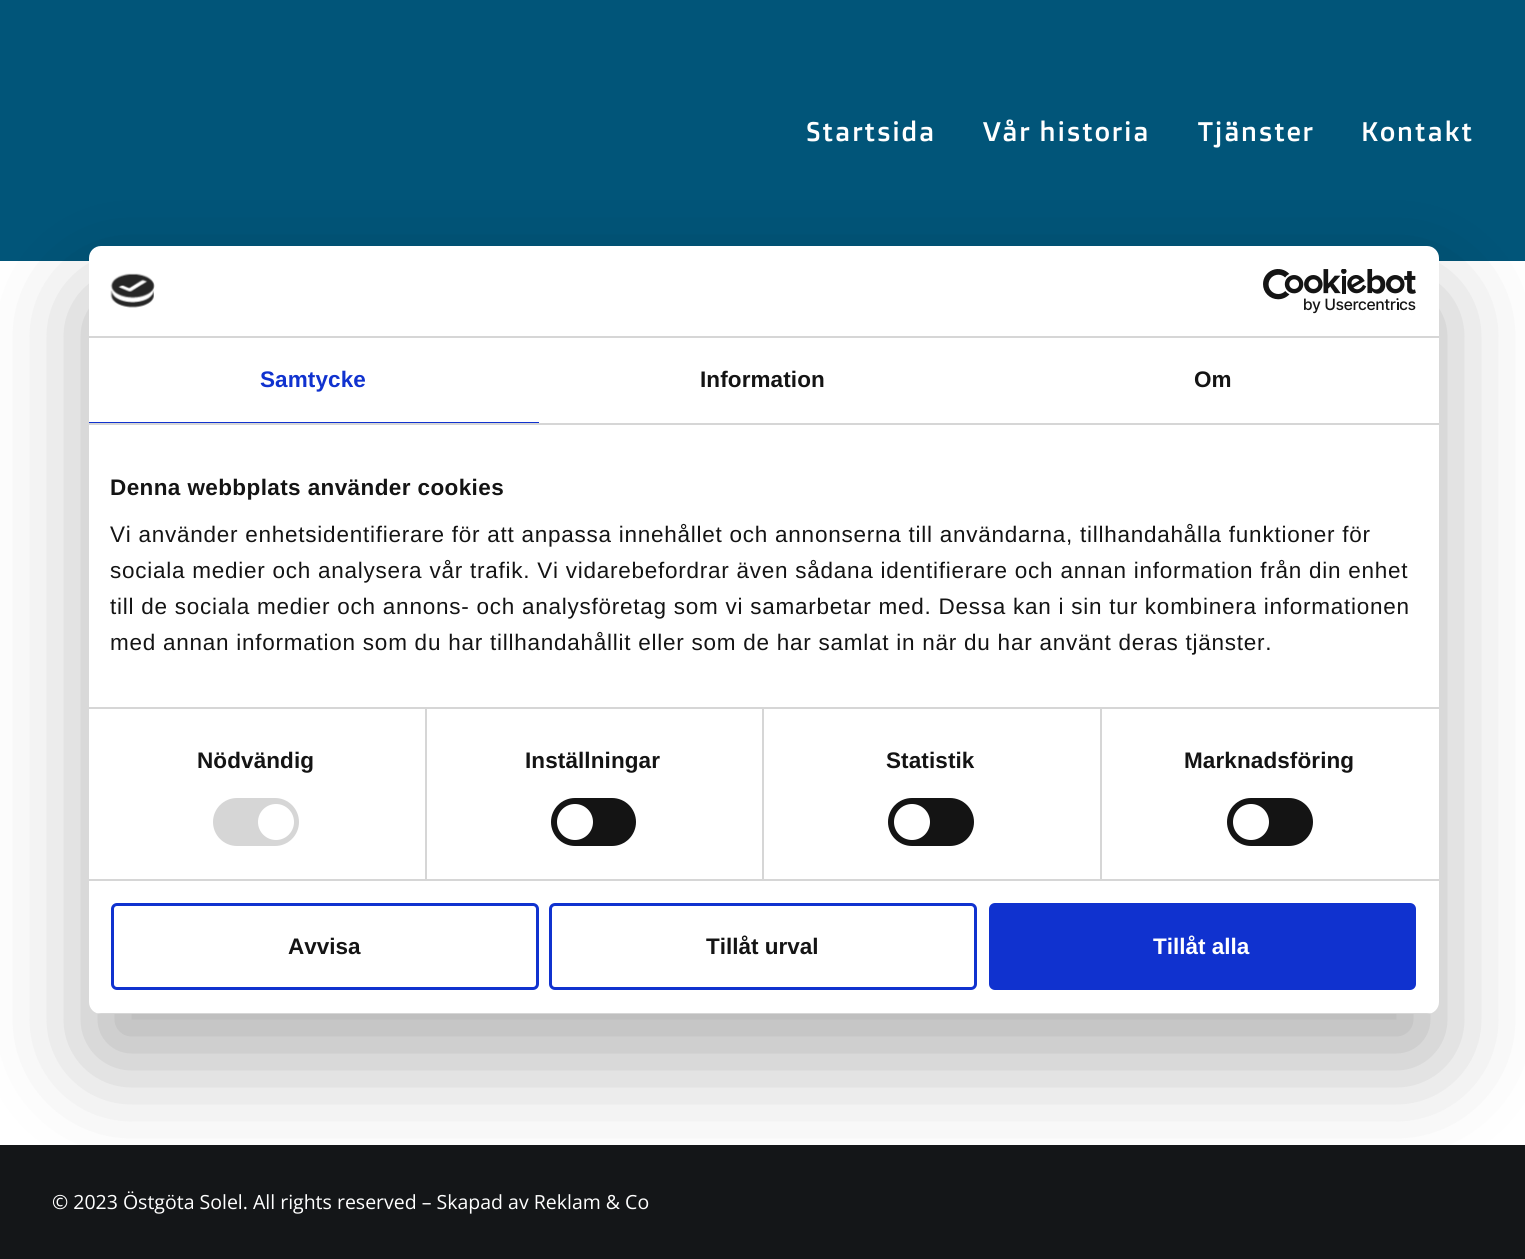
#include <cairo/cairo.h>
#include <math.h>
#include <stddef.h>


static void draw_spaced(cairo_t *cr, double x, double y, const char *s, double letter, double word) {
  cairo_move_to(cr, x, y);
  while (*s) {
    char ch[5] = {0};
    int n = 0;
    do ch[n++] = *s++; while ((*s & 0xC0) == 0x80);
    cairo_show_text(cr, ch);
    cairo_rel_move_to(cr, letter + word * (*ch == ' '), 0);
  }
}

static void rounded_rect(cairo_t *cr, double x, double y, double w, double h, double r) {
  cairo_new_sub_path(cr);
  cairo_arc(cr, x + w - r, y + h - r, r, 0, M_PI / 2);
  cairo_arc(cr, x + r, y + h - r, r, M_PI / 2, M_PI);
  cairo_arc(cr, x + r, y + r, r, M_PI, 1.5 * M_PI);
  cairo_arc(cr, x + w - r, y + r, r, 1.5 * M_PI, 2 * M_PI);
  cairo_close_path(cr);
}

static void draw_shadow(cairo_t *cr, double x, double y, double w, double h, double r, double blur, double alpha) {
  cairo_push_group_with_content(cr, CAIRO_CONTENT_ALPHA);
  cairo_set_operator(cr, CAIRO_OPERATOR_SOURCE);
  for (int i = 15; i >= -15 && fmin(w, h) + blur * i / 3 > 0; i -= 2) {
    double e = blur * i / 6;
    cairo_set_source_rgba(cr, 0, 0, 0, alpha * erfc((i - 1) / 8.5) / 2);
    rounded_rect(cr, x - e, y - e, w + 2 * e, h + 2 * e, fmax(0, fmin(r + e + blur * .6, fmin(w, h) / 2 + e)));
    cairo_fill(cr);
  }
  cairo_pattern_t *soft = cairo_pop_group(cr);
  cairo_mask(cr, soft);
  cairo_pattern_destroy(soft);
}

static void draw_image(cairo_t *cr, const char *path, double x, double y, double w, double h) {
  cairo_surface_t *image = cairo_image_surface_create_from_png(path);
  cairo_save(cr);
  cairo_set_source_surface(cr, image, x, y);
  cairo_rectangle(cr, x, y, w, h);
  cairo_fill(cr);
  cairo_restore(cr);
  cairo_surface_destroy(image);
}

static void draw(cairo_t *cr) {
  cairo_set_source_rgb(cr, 1, 1, 1);
  cairo_paint(cr);
  cairo_set_source_rgb(cr, 1 / 255.0, 85 / 255.0, 121 / 255.0);
  cairo_rectangle(cr, 0, 0, 1525, 261);
  cairo_fill(cr);
  cairo_set_source_rgb(cr, 20 / 255.0, 22 / 255.0, 24 / 255.0);
  cairo_rectangle(cr, 0, 1145, 1525, 114);
  cairo_fill(cr);
  cairo_set_source_rgb(cr, 0, 0, 0);
  draw_shadow(cr, 89, 294, 1350, 768, 12, 51, 0.3);
  cairo_set_source_rgb(cr, 1, 1, 1);
  rounded_rect(cr, 89, 246, 1350, 768, 12);
  cairo_fill(cr);
  cairo_set_source_rgb(cr, 214 / 255.0, 214 / 255.0, 214 / 255.0);
  cairo_rectangle(cr, 89, 336, 1350, 2);
  cairo_fill(cr);
  draw_image(cr, "images/1.png", 110, 273, 45, 35);
  draw_image(cr, "images/2.png", 1263, 269, 153, 45);
  cairo_rectangle(cr, 89, 423, 1350, 2);
  cairo_fill(cr);
  cairo_set_source_rgb(cr, 16 / 255.0, 50 / 255.0, 207 / 255.0);
  cairo_rectangle(cr, 89, 422, 450, 1);
  cairo_fill(cr);
  cairo_set_source_rgb(cr, 214 / 255.0, 214 / 255.0, 214 / 255.0);
  cairo_rectangle(cr, 425, 708, 2, 171);
  cairo_fill(cr);
  cairo_rectangle(cr, 762, 708, 2, 171);
  cairo_fill(cr);
  cairo_rectangle(cr, 1100, 708, 2, 171);
  cairo_fill(cr);
  cairo_rectangle(cr, 89, 707, 1350, 2);
  cairo_fill(cr);
  cairo_rectangle(cr, 89, 879, 1350, 2);
  cairo_fill(cr);
  rounded_rect(cr, 213, 798, 86, 48, 24);
  cairo_fill(cr);
  cairo_set_source_rgb(cr, 1, 1, 1);
  cairo_arc(cr, 276, 822, 18, 0, 2 * M_PI);
  cairo_fill(cr);
  cairo_set_source_rgb(cr, 20 / 255.0, 20 / 255.0, 20 / 255.0);
  rounded_rect(cr, 551, 798, 85, 48, 24);
  cairo_fill(cr);
  cairo_set_source_rgb(cr, 1, 1, 1);
  cairo_arc(cr, 575, 822, 18, 0, 2 * M_PI);
  cairo_fill(cr);
  cairo_set_source_rgb(cr, 20 / 255.0, 20 / 255.0, 20 / 255.0);
  rounded_rect(cr, 888, 798, 86, 48, 24);
  cairo_fill(cr);
  cairo_set_source_rgb(cr, 1, 1, 1);
  cairo_arc(cr, 912, 822, 18, 0, 2 * M_PI);
  cairo_fill(cr);
  cairo_set_source_rgb(cr, 20 / 255.0, 20 / 255.0, 20 / 255.0);
  rounded_rect(cr, 1227, 798, 86, 48, 24);
  cairo_fill(cr);
  cairo_set_source_rgb(cr, 1, 1, 1);
  cairo_arc(cr, 1251, 822, 18, 0, 2 * M_PI);
  cairo_fill(cr);
  cairo_save(cr);
  rounded_rect(cr, 89, 246, 1350, 768, 12);
  cairo_clip(cr);
  cairo_set_source_rgb(cr, 214 / 255.0, 214 / 255.0, 214 / 255.0);
  cairo_rectangle(cr, 89, 1013, 1350, 1);
  cairo_fill(cr);
  cairo_restore(cr);
  rounded_rect(cr, 112.5, 904.5, 425, 84, 4.5);
  cairo_set_source_rgb(cr, 16 / 255.0, 50 / 255.0, 207 / 255.0);
  cairo_set_line_width(cr, 3);
  cairo_stroke(cr);
  rounded_rect(cr, 550.5, 904.5, 425, 84, 4.5);
  cairo_stroke(cr);
  rounded_rect(cr, 990.5, 904.5, 424, 84, 4.5);
  cairo_fill_preserve(cr);
  cairo_stroke(cr);
  cairo_select_font_face(cr, "Doppio One", CAIRO_FONT_SLANT_NORMAL, CAIRO_FONT_WEIGHT_NORMAL);
  cairo_set_font_size(cr, 27);
  cairo_set_source_rgb(cr, 1, 1, 1);
  draw_spaced(cr, 806, 141, "Startsida", 1.4, 0);
  draw_spaced(cr, 983, 141, "Vår historia", 1.4, 0);
  draw_spaced(cr, 1198, 141, "Tjänster", 1.4, 0);
  draw_spaced(cr, 1361, 141, "Kontakt", 1.4, 0);
  cairo_select_font_face(cr, "Open Sans", CAIRO_FONT_SLANT_NORMAL, CAIRO_FONT_WEIGHT_NORMAL);
  cairo_set_font_size(cr, 19.5);
  cairo_move_to(cr, 52, 1209);
  cairo_show_text(cr, "© 2023 Östgöta Solel. All rights reserved – Skapad av Reklam & Co");
  cairo_select_font_face(cr, "Liberation Sans", CAIRO_FONT_SLANT_NORMAL, CAIRO_FONT_WEIGHT_BOLD);
  cairo_set_font_size(cr, 22.5);
  cairo_set_source_rgb(cr, 16 / 255.0, 50 / 255.0, 207 / 255.0);
  draw_spaced(cr, 260, 387, "Samtycke", 0.1, 0);
  cairo_set_source_rgb(cr, 20 / 255.0, 20 / 255.0, 20 / 255.0);
  draw_spaced(cr, 700, 387, "Information", 0.1, 0);
  draw_spaced(cr, 1194, 387, "Om", 0.1, 0);
  draw_spaced(cr, 110, 495, "Denna webbplats använder cookies", 0.4, 0);
  cairo_select_font_face(cr, "Liberation Sans", CAIRO_FONT_SLANT_NORMAL, CAIRO_FONT_WEIGHT_NORMAL);
  draw_spaced(cr, 110, 542, "Vi använder enhetsidentifierare för att anpassa innehållet och annonserna till användarna, tillhandahålla funktioner för", 0.75, 0);
  draw_spaced(cr, 110, 578, "sociala medier och analysera vår trafik. Vi vidarebefordrar även sådana identifierare och annan information från din enhet", 0.75, 0);
  draw_spaced(cr, 110, 614, "till de sociala medier och annons- och analysföretag som vi samarbetar med. Dessa kan i sin tur kombinera informationen", 0.75, 0);
  draw_spaced(cr, 110, 650, "med annan information som du har tillhandahållit eller som de har samlat in när du har använt deras tjänster.", 0.75, 0);
  cairo_select_font_face(cr, "Liberation Sans", CAIRO_FONT_SLANT_NORMAL, CAIRO_FONT_WEIGHT_BOLD);
  draw_spaced(cr, 197, 768, "Nödvändig", 0.1, 0);
  draw_spaced(cr, 525, 768, "Inställningar", 0.1, 0);
  draw_spaced(cr, 886, 768, "Statistik", 0.1, 0);
  draw_spaced(cr, 1184, 768, "Marknadsföring", 0.1, 0);
  cairo_move_to(cr, 288, 954);
  cairo_show_text(cr, "Avvisa");
  cairo_move_to(cr, 706, 954);
  cairo_show_text(cr, "Tillåt urval");
  cairo_set_source_rgb(cr, 1, 1, 1);
  cairo_move_to(cr, 1153, 954);
  cairo_show_text(cr, "Tillåt alla");
}

int main(void) {
  cairo_surface_t *surface = cairo_image_surface_create(CAIRO_FORMAT_RGB24, 1525, 1259);
  cairo_t *cr = cairo_create(surface);
  cairo_font_options_t *options = cairo_font_options_create();
  cairo_font_options_set_hint_metrics(options, CAIRO_HINT_METRICS_OFF);
  cairo_font_options_set_hint_style(options, CAIRO_HINT_STYLE_NONE);
  cairo_set_font_options(cr, options);
  cairo_set_miter_limit(cr, 4);
  draw(cr);
  cairo_surface_write_to_png(surface, "out.png");
  cairo_font_options_destroy(options);
  cairo_destroy(cr);
  cairo_surface_destroy(surface);
  return 0;
}
